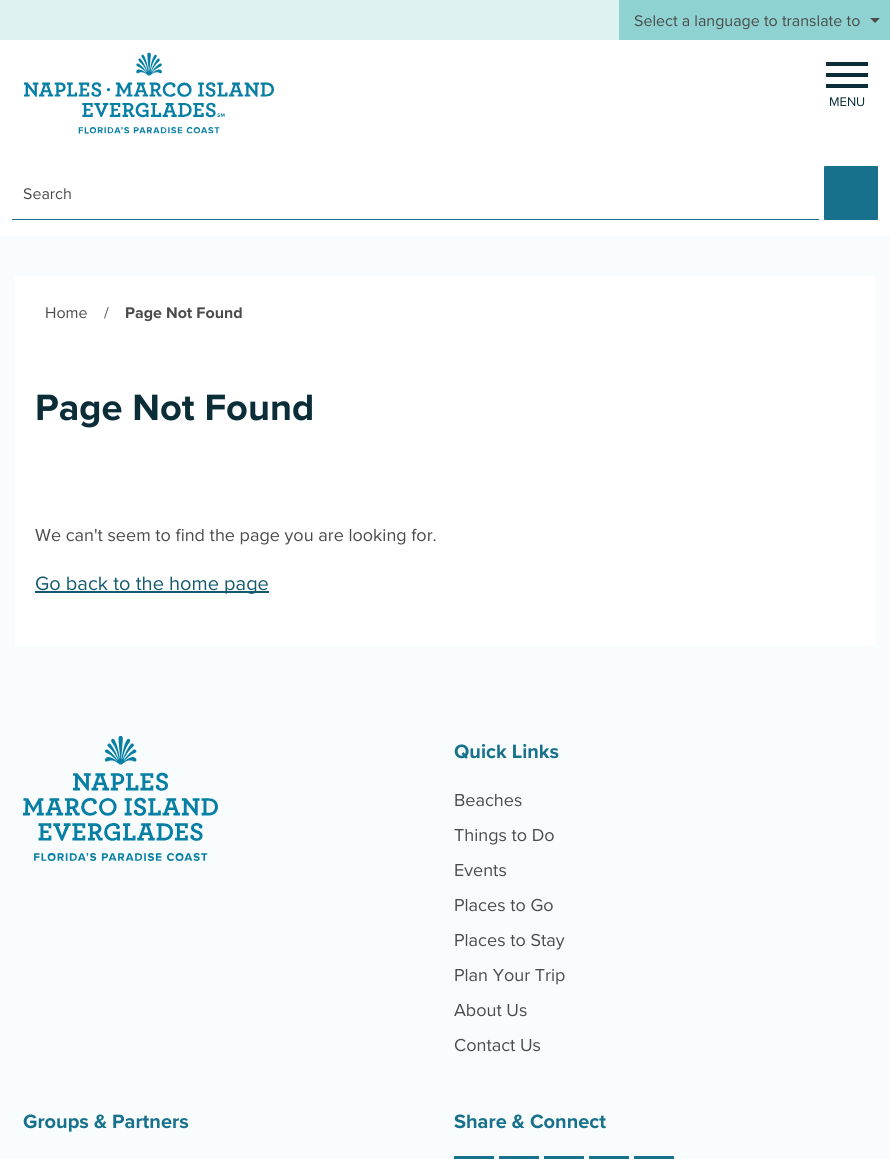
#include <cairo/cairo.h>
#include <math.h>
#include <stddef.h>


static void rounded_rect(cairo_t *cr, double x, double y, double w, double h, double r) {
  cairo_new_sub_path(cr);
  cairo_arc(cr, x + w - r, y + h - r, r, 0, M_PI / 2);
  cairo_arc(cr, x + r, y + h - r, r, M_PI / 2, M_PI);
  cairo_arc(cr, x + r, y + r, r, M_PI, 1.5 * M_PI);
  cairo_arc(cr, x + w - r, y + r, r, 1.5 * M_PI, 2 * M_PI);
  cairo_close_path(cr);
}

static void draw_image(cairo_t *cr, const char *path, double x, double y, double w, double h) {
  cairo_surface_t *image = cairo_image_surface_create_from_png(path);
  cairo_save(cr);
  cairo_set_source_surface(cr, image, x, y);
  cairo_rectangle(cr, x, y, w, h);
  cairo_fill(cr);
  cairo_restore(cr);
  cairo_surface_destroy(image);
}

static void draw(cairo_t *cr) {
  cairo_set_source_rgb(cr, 1, 1, 1);
  cairo_paint(cr);
  cairo_set_source_rgb(cr, 221 / 255.0, 242 / 255.0, 241 / 255.0);
  cairo_rectangle(cr, 0, 0, 619, 40);
  cairo_fill(cr);
  cairo_set_source_rgb(cr, 142 / 255.0, 211 / 255.0, 209 / 255.0);
  cairo_rectangle(cr, 619, 0, 271, 40);
  cairo_fill(cr);
  cairo_set_source_rgb(cr, 75 / 255.0, 75 / 255.0, 75 / 255.0);
  cairo_new_path(cr);
  cairo_move_to(cr, 870, 18);
  cairo_line_to(cr, 880, 18);
  cairo_line_to(cr, 875, 23);
  cairo_close_path(cr);
  cairo_fill(cr);
  draw_image(cr, "images/1.png", 24, 52, 250, 82);
  cairo_set_source_rgb(cr, 10 / 255.0, 45 / 255.0, 56 / 255.0);
  cairo_rectangle(cr, 826, 73, 42, 4);
  cairo_fill(cr);
  cairo_rectangle(cr, 826, 62, 42, 4);
  cairo_fill(cr);
  cairo_rectangle(cr, 826, 84, 42, 4);
  cairo_fill(cr);
  cairo_set_source_rgb(cr, 24 / 255.0, 113 / 255.0, 140 / 255.0);
  rounded_rect(cr, 824, 166, 54, 54, 1);
  cairo_fill(cr);
  cairo_rectangle(cr, 12, 219, 807, 1);
  cairo_fill(cr);
  cairo_set_source_rgb(cr, 248 / 255.0, 252 / 255.0, 252 / 255.0);
  cairo_rectangle(cr, 0, 236, 890, 923);
  cairo_fill(cr);
  cairo_set_source_rgb(cr, 1, 1, 1);
  cairo_rectangle(cr, 15, 276, 860, 370);
  cairo_fill(cr);
  cairo_set_source_rgb(cr, 19 / 255.0, 90 / 255.0, 112 / 255.0);
  cairo_rectangle(cr, 35, 591, 234, 2);
  cairo_fill(cr);
  draw_image(cr, "images/2.png", 23, 736, 195, 125);
  cairo_set_source_rgb(cr, 24 / 255.0, 113 / 255.0, 140 / 255.0);
  cairo_rectangle(cr, 454, 1156, 40, 3);
  cairo_fill(cr);
  cairo_rectangle(cr, 499, 1156, 40, 3);
  cairo_fill(cr);
  cairo_rectangle(cr, 544, 1156, 40, 3);
  cairo_fill(cr);
  cairo_rectangle(cr, 589, 1156, 40, 3);
  cairo_fill(cr);
  cairo_rectangle(cr, 634, 1156, 40, 3);
  cairo_fill(cr);
  cairo_select_font_face(cr, "Proxima Nova", CAIRO_FONT_SLANT_NORMAL, CAIRO_FONT_WEIGHT_NORMAL);
  cairo_set_font_size(cr, 16);
  cairo_set_source_rgb(cr, 75 / 255.0, 75 / 255.0, 75 / 255.0);
  cairo_move_to(cr, 634, 26);
  cairo_show_text(cr, "Select a language to translate to");
  cairo_set_font_size(cr, 13);
  cairo_set_source_rgb(cr, 10 / 255.0, 45 / 255.0, 56 / 255.0);
  cairo_move_to(cr, 829, 106);
  cairo_show_text(cr, "MENU");
  cairo_set_font_size(cr, 16);
  cairo_set_source_rgb(cr, 75 / 255.0, 75 / 255.0, 75 / 255.0);
  cairo_move_to(cr, 23, 199);
  cairo_show_text(cr, "Search");
  cairo_move_to(cr, 45, 318);
  cairo_show_text(cr, "Home");
  cairo_move_to(cr, 104, 318);
  cairo_show_text(cr, "/");
  cairo_select_font_face(cr, "Proxima Nova", CAIRO_FONT_SLANT_NORMAL, CAIRO_FONT_WEIGHT_BOLD);
  cairo_move_to(cr, 125, 318);
  cairo_show_text(cr, "Page Not Found");
  cairo_set_font_size(cr, 38);
  cairo_set_source_rgb(cr, 10 / 255.0, 45 / 255.0, 56 / 255.0);
  cairo_move_to(cr, 35, 420);
  cairo_show_text(cr, "Page Not Found");
  cairo_select_font_face(cr, "Proxima Nova", CAIRO_FONT_SLANT_NORMAL, CAIRO_FONT_WEIGHT_NORMAL);
  cairo_set_font_size(cr, 18);
  cairo_set_source_rgb(cr, 75 / 255.0, 75 / 255.0, 75 / 255.0);
  cairo_move_to(cr, 35, 541);
  cairo_show_text(cr, "We can't seem to find the page you are looking for.");
  cairo_set_font_size(cr, 20);
  cairo_set_source_rgb(cr, 19 / 255.0, 90 / 255.0, 112 / 255.0);
  cairo_move_to(cr, 35, 590);
  cairo_show_text(cr, "Go back to the home page");
  cairo_select_font_face(cr, "Proxima Nova", CAIRO_FONT_SLANT_NORMAL, CAIRO_FONT_WEIGHT_BOLD);
  cairo_set_source_rgb(cr, 24 / 255.0, 113 / 255.0, 140 / 255.0);
  cairo_move_to(cr, 454, 758);
  cairo_show_text(cr, "Quick Links");
  cairo_select_font_face(cr, "Proxima Nova", CAIRO_FONT_SLANT_NORMAL, CAIRO_FONT_WEIGHT_NORMAL);
  cairo_set_font_size(cr, 18);
  cairo_set_source_rgb(cr, 75 / 255.0, 75 / 255.0, 75 / 255.0);
  cairo_move_to(cr, 454, 806);
  cairo_show_text(cr, "Beaches");
  cairo_move_to(cr, 454, 841);
  cairo_show_text(cr, "Things to Do");
  cairo_move_to(cr, 454, 876);
  cairo_show_text(cr, "Events");
  cairo_move_to(cr, 454, 911);
  cairo_show_text(cr, "Places to Go");
  cairo_move_to(cr, 454, 946);
  cairo_show_text(cr, "Places to Stay");
  cairo_move_to(cr, 454, 981);
  cairo_show_text(cr, "Plan Your Trip");
  cairo_move_to(cr, 454, 1016);
  cairo_show_text(cr, "About Us");
  cairo_move_to(cr, 454, 1051);
  cairo_show_text(cr, "Contact Us");
  cairo_select_font_face(cr, "Proxima Nova", CAIRO_FONT_SLANT_NORMAL, CAIRO_FONT_WEIGHT_BOLD);
  cairo_set_font_size(cr, 20);
  cairo_set_source_rgb(cr, 24 / 255.0, 113 / 255.0, 140 / 255.0);
  cairo_move_to(cr, 23, 1128);
  cairo_show_text(cr, "Groups & Partners");
  cairo_move_to(cr, 454, 1128);
  cairo_show_text(cr, "Share & Connect");
}

int main(void) {
  cairo_surface_t *surface = cairo_image_surface_create(CAIRO_FORMAT_RGB24, 890, 1159);
  cairo_t *cr = cairo_create(surface);
  cairo_font_options_t *options = cairo_font_options_create();
  cairo_font_options_set_hint_metrics(options, CAIRO_HINT_METRICS_OFF);
  cairo_font_options_set_hint_style(options, CAIRO_HINT_STYLE_NONE);
  cairo_set_font_options(cr, options);
  cairo_set_miter_limit(cr, 4);
  draw(cr);
  cairo_surface_write_to_png(surface, "out.png");
  cairo_font_options_destroy(options);
  cairo_destroy(cr);
  cairo_surface_destroy(surface);
  return 0;
}
